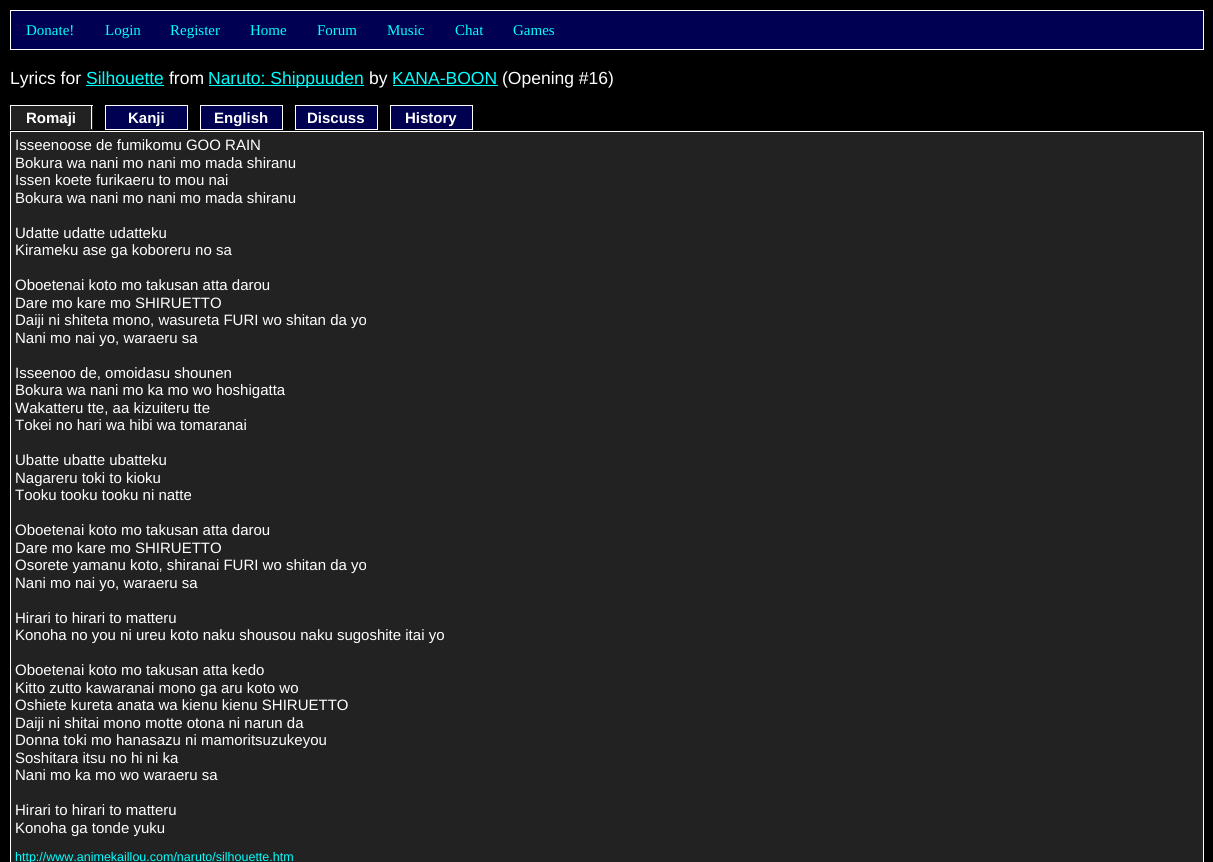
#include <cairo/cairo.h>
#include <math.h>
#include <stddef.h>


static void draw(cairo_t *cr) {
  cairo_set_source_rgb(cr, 0, 0, 0);
  cairo_paint(cr);
  cairo_set_source_rgb(cr, 0, 0, 80 / 255.0);
  cairo_rectangle(cr, 10.5, 10.5, 1193, 39);
  cairo_fill_preserve(cr);
  cairo_set_source_rgb(cr, 1, 1, 1);
  cairo_set_line_width(cr, 1);
  cairo_stroke(cr);
  cairo_set_source_rgb(cr, 0, 1, 1);
  cairo_rectangle(cr, 86, 85, 78, 1);
  cairo_fill(cr);
  cairo_rectangle(cr, 209, 85, 155, 1);
  cairo_fill(cr);
  cairo_rectangle(cr, 393, 85, 105, 1);
  cairo_fill(cr);
  cairo_set_source_rgb(cr, 34 / 255.0, 34 / 255.0, 34 / 255.0);
  cairo_rectangle(cr, 11, 106, 82, 23);
  cairo_fill(cr);
  cairo_set_source_rgb(cr, 1, 1, 1);
  cairo_rectangle(cr, 10, 105, 83, 1);
  cairo_fill(cr);
  cairo_rectangle(cr, 91, 105, 1, 25);
  cairo_fill(cr);
  cairo_set_source_rgb(cr, 34 / 255.0, 34 / 255.0, 34 / 255.0);
  cairo_rectangle(cr, 10, 129, 83, 1);
  cairo_fill(cr);
  cairo_set_source_rgb(cr, 1, 1, 1);
  cairo_rectangle(cr, 10, 105, 1, 25);
  cairo_fill(cr);
  cairo_set_source_rgb(cr, 0, 0, 80 / 255.0);
  cairo_rectangle(cr, 105.5, 105.5, 82, 24);
  cairo_fill_preserve(cr);
  cairo_set_source_rgb(cr, 1, 1, 1);
  cairo_stroke(cr);
  cairo_set_source_rgb(cr, 0, 0, 80 / 255.0);
  cairo_rectangle(cr, 200.5, 105.5, 82, 24);
  cairo_fill_preserve(cr);
  cairo_set_source_rgb(cr, 1, 1, 1);
  cairo_stroke(cr);
  cairo_set_source_rgb(cr, 0, 0, 80 / 255.0);
  cairo_rectangle(cr, 295.5, 105.5, 82, 24);
  cairo_fill_preserve(cr);
  cairo_set_source_rgb(cr, 1, 1, 1);
  cairo_stroke(cr);
  cairo_set_source_rgb(cr, 0, 0, 80 / 255.0);
  cairo_rectangle(cr, 390.5, 105.5, 82, 24);
  cairo_fill_preserve(cr);
  cairo_set_source_rgb(cr, 1, 1, 1);
  cairo_stroke(cr);
  cairo_set_source_rgb(cr, 34 / 255.0, 34 / 255.0, 34 / 255.0);
  cairo_rectangle(cr, 10.5, 131.5, 1193, 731);
  cairo_fill_preserve(cr);
  cairo_set_source_rgb(cr, 1, 1, 1);
  cairo_stroke(cr);
  cairo_select_font_face(cr, "Liberation Serif", CAIRO_FONT_SLANT_NORMAL, CAIRO_FONT_WEIGHT_NORMAL);
  cairo_set_font_size(cr, 15);
  cairo_set_source_rgb(cr, 0, 1, 1);
  cairo_move_to(cr, 26, 35);
  cairo_show_text(cr, "Donate!");
  cairo_move_to(cr, 105, 35);
  cairo_show_text(cr, "Login");
  cairo_move_to(cr, 170, 35);
  cairo_show_text(cr, "Register");
  cairo_move_to(cr, 250, 35);
  cairo_show_text(cr, "Home");
  cairo_move_to(cr, 317, 35);
  cairo_show_text(cr, "Forum");
  cairo_move_to(cr, 387, 35);
  cairo_show_text(cr, "Music");
  cairo_move_to(cr, 455, 35);
  cairo_show_text(cr, "Chat");
  cairo_move_to(cr, 513, 35);
  cairo_show_text(cr, "Games");
  cairo_select_font_face(cr, "Liberation Sans", CAIRO_FONT_SLANT_NORMAL, CAIRO_FONT_WEIGHT_NORMAL);
  cairo_set_font_size(cr, 17.5);
  cairo_set_source_rgb(cr, 1, 1, 1);
  cairo_move_to(cr, 10, 84);
  cairo_show_text(cr, "Lyrics for");
  cairo_set_source_rgb(cr, 0, 1, 1);
  cairo_move_to(cr, 86, 84);
  cairo_show_text(cr, "Silhouette");
  cairo_set_source_rgb(cr, 1, 1, 1);
  cairo_move_to(cr, 169, 84);
  cairo_show_text(cr, "from");
  cairo_set_source_rgb(cr, 0, 1, 1);
  cairo_move_to(cr, 208, 84);
  cairo_show_text(cr, "Naruto: Shippuuden");
  cairo_set_source_rgb(cr, 1, 1, 1);
  cairo_move_to(cr, 369, 84);
  cairo_show_text(cr, "by");
  cairo_set_source_rgb(cr, 0, 1, 1);
  cairo_move_to(cr, 392, 84);
  cairo_show_text(cr, "KANA-BOON");
  cairo_set_source_rgb(cr, 1, 1, 1);
  cairo_move_to(cr, 502, 84);
  cairo_show_text(cr, "(Opening #16)");
  cairo_select_font_face(cr, "Liberation Sans", CAIRO_FONT_SLANT_NORMAL, CAIRO_FONT_WEIGHT_BOLD);
  cairo_set_font_size(cr, 15);
  cairo_move_to(cr, 26, 123);
  cairo_show_text(cr, "Romaji");
  cairo_move_to(cr, 128, 123);
  cairo_show_text(cr, "Kanji");
  cairo_move_to(cr, 214, 123);
  cairo_show_text(cr, "English");
  cairo_move_to(cr, 307, 123);
  cairo_show_text(cr, "Discuss");
  cairo_move_to(cr, 405, 123);
  cairo_show_text(cr, "History");
  cairo_select_font_face(cr, "Liberation Sans", CAIRO_FONT_SLANT_NORMAL, CAIRO_FONT_WEIGHT_NORMAL);
  cairo_move_to(cr, 15, 150);
  cairo_show_text(cr, "Isseenoose de fumikomu GOO RAIN");
  cairo_move_to(cr, 15, 168);
  cairo_show_text(cr, "Bokura wa nani mo nani mo mada shiranu");
  cairo_move_to(cr, 15, 185);
  cairo_show_text(cr, "Issen koete furikaeru to mou nai");
  cairo_move_to(cr, 15, 203);
  cairo_show_text(cr, "Bokura wa nani mo nani mo mada shiranu");
  cairo_move_to(cr, 15, 238);
  cairo_show_text(cr, "Udatte udatte udatteku");
  cairo_move_to(cr, 15, 255);
  cairo_show_text(cr, "Kirameku ase ga koboreru no sa");
  cairo_move_to(cr, 15, 290);
  cairo_show_text(cr, "Oboetenai koto mo takusan atta darou");
  cairo_move_to(cr, 15, 308);
  cairo_show_text(cr, "Dare mo kare mo SHIRUETTO");
  cairo_move_to(cr, 15, 325);
  cairo_show_text(cr, "Daiji ni shiteta mono, wasureta FURI wo shitan da yo");
  cairo_move_to(cr, 15, 343);
  cairo_show_text(cr, "Nani mo nai yo, waraeru sa");
  cairo_move_to(cr, 15, 378);
  cairo_show_text(cr, "Isseenoo de, omoidasu shounen");
  cairo_move_to(cr, 15, 395);
  cairo_show_text(cr, "Bokura wa nani mo ka mo wo hoshigatta");
  cairo_move_to(cr, 15, 413);
  cairo_show_text(cr, "Wakatteru tte, aa kizuiteru tte");
  cairo_move_to(cr, 15, 430);
  cairo_show_text(cr, "Tokei no hari wa hibi wa tomaranai");
  cairo_move_to(cr, 15, 465);
  cairo_show_text(cr, "Ubatte ubatte ubatteku");
  cairo_move_to(cr, 15, 483);
  cairo_show_text(cr, "Nagareru toki to kioku");
  cairo_move_to(cr, 15, 500);
  cairo_show_text(cr, "Tooku tooku tooku ni natte");
  cairo_move_to(cr, 15, 535);
  cairo_show_text(cr, "Oboetenai koto mo takusan atta darou");
  cairo_move_to(cr, 15, 553);
  cairo_show_text(cr, "Dare mo kare mo SHIRUETTO");
  cairo_move_to(cr, 15, 570);
  cairo_show_text(cr, "Osorete yamanu koto, shiranai FURI wo shitan da yo");
  cairo_move_to(cr, 15, 588);
  cairo_show_text(cr, "Nani mo nai yo, waraeru sa");
  cairo_move_to(cr, 15, 623);
  cairo_show_text(cr, "Hirari to hirari to matteru");
  cairo_move_to(cr, 15, 640);
  cairo_show_text(cr, "Konoha no you ni ureu koto naku shousou naku sugoshite itai yo");
  cairo_move_to(cr, 15, 675);
  cairo_show_text(cr, "Oboetenai koto mo takusan atta kedo");
  cairo_move_to(cr, 15, 693);
  cairo_show_text(cr, "Kitto zutto kawaranai mono ga aru koto wo");
  cairo_move_to(cr, 15, 710);
  cairo_show_text(cr, "Oshiete kureta anata wa kienu kienu SHIRUETTO");
  cairo_move_to(cr, 15, 728);
  cairo_show_text(cr, "Daiji ni shitai mono motte otona ni narun da");
  cairo_move_to(cr, 15, 745);
  cairo_show_text(cr, "Donna toki mo hanasazu ni mamoritsuzukeyou");
  cairo_move_to(cr, 15, 763);
  cairo_show_text(cr, "Soshitara itsu no hi ni ka");
  cairo_move_to(cr, 15, 780);
  cairo_show_text(cr, "Nani mo ka mo wo waraeru sa");
  cairo_move_to(cr, 15, 815);
  cairo_show_text(cr, "Hirari to hirari to matteru");
  cairo_move_to(cr, 15, 833);
  cairo_show_text(cr, "Konoha ga tonde yuku");
  cairo_set_font_size(cr, 12.5);
  cairo_set_source_rgb(cr, 0, 1, 1);
  cairo_move_to(cr, 15, 861);
  cairo_show_text(cr, "http://www.animekaillou.com/naruto/silhouette.htm");
}

int main(void) {
  cairo_surface_t *surface = cairo_image_surface_create(CAIRO_FORMAT_RGB24, 1213, 862);
  cairo_t *cr = cairo_create(surface);
  cairo_font_options_t *options = cairo_font_options_create();
  cairo_font_options_set_hint_metrics(options, CAIRO_HINT_METRICS_OFF);
  cairo_font_options_set_hint_style(options, CAIRO_HINT_STYLE_NONE);
  cairo_set_font_options(cr, options);
  cairo_set_miter_limit(cr, 4);
  draw(cr);
  cairo_surface_write_to_png(surface, "out.png");
  cairo_font_options_destroy(options);
  cairo_destroy(cr);
  cairo_surface_destroy(surface);
  return 0;
}
